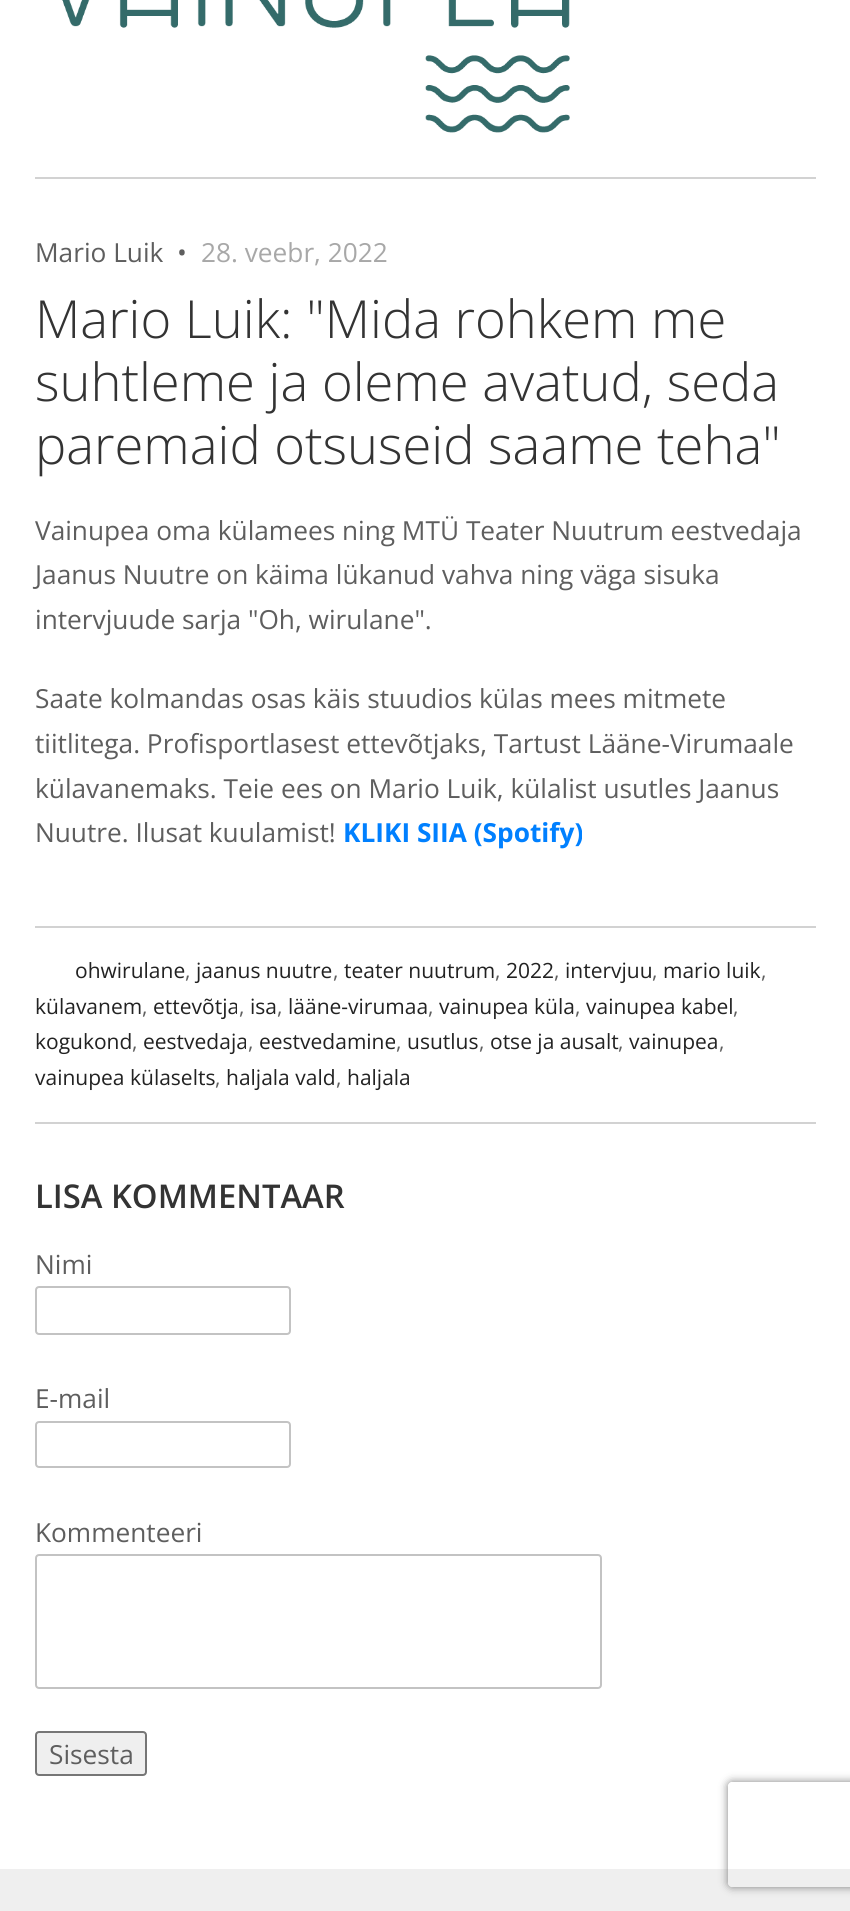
#include <cairo/cairo.h>
#include <math.h>
#include <stddef.h>


static void rounded_rect(cairo_t *cr, double x, double y, double w, double h, double r) {
  cairo_new_sub_path(cr);
  cairo_arc(cr, x + w - r, y + h - r, r, 0, M_PI / 2);
  cairo_arc(cr, x + r, y + h - r, r, M_PI / 2, M_PI);
  cairo_arc(cr, x + r, y + r, r, M_PI, 1.5 * M_PI);
  cairo_arc(cr, x + w - r, y + r, r, 1.5 * M_PI, 2 * M_PI);
  cairo_close_path(cr);
}

static void draw_shadow(cairo_t *cr, double x, double y, double w, double h, double r, double blur, double alpha) {
  cairo_push_group_with_content(cr, CAIRO_CONTENT_ALPHA);
  cairo_set_operator(cr, CAIRO_OPERATOR_SOURCE);
  for (int i = 15; i >= -15 && fmin(w, h) + blur * i / 3 > 0; i -= 2) {
    double e = blur * i / 6;
    cairo_set_source_rgba(cr, 0, 0, 0, alpha * erfc((i - 1) / 8.5) / 2);
    rounded_rect(cr, x - e, y - e, w + 2 * e, h + 2 * e, fmax(0, fmin(r + e + blur * .6, fmin(w, h) / 2 + e)));
    cairo_fill(cr);
  }
  cairo_pattern_t *soft = cairo_pop_group(cr);
  cairo_mask(cr, soft);
  cairo_pattern_destroy(soft);
}

static void draw_image(cairo_t *cr, const char *path, double x, double y, double w, double h) {
  cairo_surface_t *image = cairo_image_surface_create_from_png(path);
  cairo_save(cr);
  cairo_set_source_surface(cr, image, x, y);
  cairo_rectangle(cr, x, y, w, h);
  cairo_fill(cr);
  cairo_restore(cr);
  cairo_surface_destroy(image);
}

static void draw(cairo_t *cr) {
  cairo_set_source_rgb(cr, 239 / 255.0, 239 / 255.0, 239 / 255.0);
  cairo_paint(cr);
  cairo_set_source_rgb(cr, 1, 1, 1);
  cairo_rectangle(cr, 0, 0, 850, 1869);
  cairo_fill(cr);
  cairo_set_source_rgb(cr, 210 / 255.0, 210 / 255.0, 210 / 255.0);
  cairo_rectangle(cr, 35, 177, 781, 2);
  cairo_fill(cr);
  draw_image(cr, "images/1.png", 62, 0, 508, 133);
  cairo_rectangle(cr, 35, 926, 781, 2);
  cairo_fill(cr);
  cairo_rectangle(cr, 35, 1122, 781, 2);
  cairo_fill(cr);
  rounded_rect(cr, 36, 1287, 254, 47, 3);
  cairo_set_source_rgb(cr, 195 / 255.0, 195 / 255.0, 195 / 255.0);
  cairo_stroke(cr);
  rounded_rect(cr, 36, 1422, 254, 45, 3);
  cairo_stroke(cr);
  rounded_rect(cr, 36, 1555, 565, 133, 3);
  cairo_stroke(cr);
  cairo_set_source_rgb(cr, 239 / 255.0, 239 / 255.0, 239 / 255.0);
  rounded_rect(cr, 36, 1732, 110, 43, 3);
  cairo_fill_preserve(cr);
  cairo_set_source_rgb(cr, 118 / 255.0, 118 / 255.0, 118 / 255.0);
  cairo_stroke(cr);
  cairo_save(cr);
  cairo_set_fill_rule(cr, CAIRO_FILL_RULE_EVEN_ODD);
  cairo_new_path(cr);
  cairo_move_to(cr, 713, 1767);
  cairo_line_to(cr, 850, 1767);
  cairo_line_to(cr, 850, 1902);
  cairo_line_to(cr, 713, 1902);
  cairo_close_path(cr);
  cairo_move_to(cr, 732, 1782);
  cairo_line_to(cr, 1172, 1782);
  cairo_curve_to(cr, 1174, 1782, 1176, 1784, 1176, 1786);
  cairo_line_to(cr, 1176, 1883);
  cairo_curve_to(cr, 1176, 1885, 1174, 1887, 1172, 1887);
  cairo_line_to(cr, 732, 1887);
  cairo_curve_to(cr, 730, 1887, 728, 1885, 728, 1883);
  cairo_line_to(cr, 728, 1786);
  cairo_curve_to(cr, 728, 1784, 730, 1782, 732, 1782);
  cairo_close_path(cr);
  cairo_clip(cr);
  cairo_set_source_rgb(cr, 128 / 255.0, 128 / 255.0, 128 / 255.0);
  draw_shadow(cr, 728, 1782, 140, 105, 4, 4.5, 1);
  cairo_restore(cr);
  cairo_select_font_face(cr, "Open Sans", CAIRO_FONT_SLANT_NORMAL, CAIRO_FONT_WEIGHT_NORMAL);
  cairo_set_font_size(cr, 26.25);
  cairo_set_source_rgb(cr, 94 / 255.0, 94 / 255.0, 94 / 255.0);
  cairo_move_to(cr, 35, 262);
  cairo_show_text(cr, "Mario Luik  •");
  cairo_set_source_rgb(cr, 168 / 255.0, 168 / 255.0, 168 / 255.0);
  cairo_move_to(cr, 201, 262);
  cairo_show_text(cr, "28. veebr, 2022");
  cairo_select_font_face(cr, "Open Sans Light", CAIRO_FONT_SLANT_NORMAL, CAIRO_FONT_WEIGHT_NORMAL);
  cairo_set_font_size(cr, 52.5);
  cairo_set_source_rgb(cr, 51 / 255.0, 51 / 255.0, 51 / 255.0);
  cairo_move_to(cr, 35, 338);
  cairo_show_text(cr, "Mario Luik: \"Mida rohkem me");
  cairo_move_to(cr, 35, 401);
  cairo_show_text(cr, "suhtleme ja oleme avatud, seda");
  cairo_move_to(cr, 35, 464);
  cairo_show_text(cr, "paremaid otsuseid saame teha\"");
  cairo_select_font_face(cr, "Open Sans", CAIRO_FONT_SLANT_NORMAL, CAIRO_FONT_WEIGHT_NORMAL);
  cairo_set_font_size(cr, 26.25);
  cairo_set_source_rgb(cr, 94 / 255.0, 94 / 255.0, 94 / 255.0);
  cairo_move_to(cr, 35, 540);
  cairo_show_text(cr, "Vainupea oma külamees ning MTÜ Teater Nuutrum eestvedaja");
  cairo_move_to(cr, 35, 584);
  cairo_show_text(cr, "Jaanus Nuutre on käima lükanud vahva ning väga sisuka");
  cairo_move_to(cr, 35, 629);
  cairo_show_text(cr, "intervjuude sarja \"Oh, wirulane\".");
  cairo_move_to(cr, 35, 708);
  cairo_show_text(cr, "Saate kolmandas osas käis stuudios külas mees mitmete");
  cairo_move_to(cr, 35, 753);
  cairo_show_text(cr, "tiitlitega. Profisportlasest ettevõtjaks, Tartust Lääne-Virumaale");
  cairo_move_to(cr, 35, 798);
  cairo_show_text(cr, "külavanemaks. Teie ees on Mario Luik, külalist usutles Jaanus");
  cairo_move_to(cr, 35, 842);
  cairo_show_text(cr, "Nuutre. Ilusat kuulamist!");
  cairo_select_font_face(cr, "Open Sans", CAIRO_FONT_SLANT_NORMAL, CAIRO_FONT_WEIGHT_BOLD);
  cairo_set_source_rgb(cr, 0, 128 / 255.0, 1);
  cairo_move_to(cr, 343, 842);
  cairo_show_text(cr, "KLIKI SIIA (Spotify)");
  cairo_select_font_face(cr, "Open Sans", CAIRO_FONT_SLANT_NORMAL, CAIRO_FONT_WEIGHT_NORMAL);
  cairo_set_font_size(cr, 21);
  cairo_set_source_rgb(cr, 34 / 255.0, 34 / 255.0, 34 / 255.0);
  cairo_move_to(cr, 75, 978);
  cairo_show_text(cr, "ohwirulane");
  cairo_set_source_rgb(cr, 94 / 255.0, 94 / 255.0, 94 / 255.0);
  cairo_move_to(cr, 185, 978);
  cairo_show_text(cr, ",");
  cairo_set_source_rgb(cr, 34 / 255.0, 34 / 255.0, 34 / 255.0);
  cairo_move_to(cr, 196, 978);
  cairo_show_text(cr, "jaanus nuutre");
  cairo_set_source_rgb(cr, 94 / 255.0, 94 / 255.0, 94 / 255.0);
  cairo_move_to(cr, 333, 978);
  cairo_show_text(cr, ",");
  cairo_set_source_rgb(cr, 34 / 255.0, 34 / 255.0, 34 / 255.0);
  cairo_move_to(cr, 344, 978);
  cairo_show_text(cr, "teater nuutrum");
  cairo_set_source_rgb(cr, 94 / 255.0, 94 / 255.0, 94 / 255.0);
  cairo_move_to(cr, 495, 978);
  cairo_show_text(cr, ",");
  cairo_set_source_rgb(cr, 34 / 255.0, 34 / 255.0, 34 / 255.0);
  cairo_move_to(cr, 506, 978);
  cairo_show_text(cr, "2022");
  cairo_set_source_rgb(cr, 94 / 255.0, 94 / 255.0, 94 / 255.0);
  cairo_move_to(cr, 554, 978);
  cairo_show_text(cr, ",");
  cairo_set_source_rgb(cr, 34 / 255.0, 34 / 255.0, 34 / 255.0);
  cairo_move_to(cr, 565, 978);
  cairo_show_text(cr, "intervjuu");
  cairo_set_source_rgb(cr, 94 / 255.0, 94 / 255.0, 94 / 255.0);
  cairo_move_to(cr, 652, 978);
  cairo_show_text(cr, ",");
  cairo_set_source_rgb(cr, 34 / 255.0, 34 / 255.0, 34 / 255.0);
  cairo_move_to(cr, 663, 978);
  cairo_show_text(cr, "mario luik");
  cairo_set_source_rgb(cr, 94 / 255.0, 94 / 255.0, 94 / 255.0);
  cairo_move_to(cr, 761, 978);
  cairo_show_text(cr, ",");
  cairo_set_source_rgb(cr, 34 / 255.0, 34 / 255.0, 34 / 255.0);
  cairo_move_to(cr, 35, 1014);
  cairo_show_text(cr, "külavanem");
  cairo_set_source_rgb(cr, 94 / 255.0, 94 / 255.0, 94 / 255.0);
  cairo_move_to(cr, 142, 1014);
  cairo_show_text(cr, ",");
  cairo_set_source_rgb(cr, 34 / 255.0, 34 / 255.0, 34 / 255.0);
  cairo_move_to(cr, 153, 1014);
  cairo_show_text(cr, "ettevõtja");
  cairo_set_source_rgb(cr, 94 / 255.0, 94 / 255.0, 94 / 255.0);
  cairo_move_to(cr, 239, 1014);
  cairo_show_text(cr, ",");
  cairo_set_source_rgb(cr, 34 / 255.0, 34 / 255.0, 34 / 255.0);
  cairo_move_to(cr, 250, 1014);
  cairo_show_text(cr, "isa");
  cairo_set_source_rgb(cr, 94 / 255.0, 94 / 255.0, 94 / 255.0);
  cairo_move_to(cr, 277, 1014);
  cairo_show_text(cr, ",");
  cairo_set_source_rgb(cr, 34 / 255.0, 34 / 255.0, 34 / 255.0);
  cairo_move_to(cr, 288, 1014);
  cairo_show_text(cr, "lääne-virumaa");
  cairo_set_source_rgb(cr, 94 / 255.0, 94 / 255.0, 94 / 255.0);
  cairo_move_to(cr, 428, 1014);
  cairo_show_text(cr, ",");
  cairo_set_source_rgb(cr, 34 / 255.0, 34 / 255.0, 34 / 255.0);
  cairo_move_to(cr, 439, 1014);
  cairo_show_text(cr, "vainupea küla");
  cairo_set_source_rgb(cr, 94 / 255.0, 94 / 255.0, 94 / 255.0);
  cairo_move_to(cr, 575, 1014);
  cairo_show_text(cr, ",");
  cairo_set_source_rgb(cr, 34 / 255.0, 34 / 255.0, 34 / 255.0);
  cairo_move_to(cr, 586, 1014);
  cairo_show_text(cr, "vainupea kabel");
  cairo_set_source_rgb(cr, 94 / 255.0, 94 / 255.0, 94 / 255.0);
  cairo_move_to(cr, 733, 1014);
  cairo_show_text(cr, ",");
  cairo_set_source_rgb(cr, 34 / 255.0, 34 / 255.0, 34 / 255.0);
  cairo_move_to(cr, 35, 1049);
  cairo_show_text(cr, "kogukond");
  cairo_set_source_rgb(cr, 94 / 255.0, 94 / 255.0, 94 / 255.0);
  cairo_move_to(cr, 132, 1049);
  cairo_show_text(cr, ",");
  cairo_set_source_rgb(cr, 34 / 255.0, 34 / 255.0, 34 / 255.0);
  cairo_move_to(cr, 143, 1049);
  cairo_show_text(cr, "eestvedaja");
  cairo_set_source_rgb(cr, 94 / 255.0, 94 / 255.0, 94 / 255.0);
  cairo_move_to(cr, 248, 1049);
  cairo_show_text(cr, ",");
  cairo_set_source_rgb(cr, 34 / 255.0, 34 / 255.0, 34 / 255.0);
  cairo_move_to(cr, 259, 1049);
  cairo_show_text(cr, "eestvedamine");
  cairo_set_source_rgb(cr, 94 / 255.0, 94 / 255.0, 94 / 255.0);
  cairo_move_to(cr, 396, 1049);
  cairo_show_text(cr, ",");
  cairo_set_source_rgb(cr, 34 / 255.0, 34 / 255.0, 34 / 255.0);
  cairo_move_to(cr, 407, 1049);
  cairo_show_text(cr, "usutlus");
  cairo_set_source_rgb(cr, 94 / 255.0, 94 / 255.0, 94 / 255.0);
  cairo_move_to(cr, 479, 1049);
  cairo_show_text(cr, ",");
  cairo_set_source_rgb(cr, 34 / 255.0, 34 / 255.0, 34 / 255.0);
  cairo_move_to(cr, 490, 1049);
  cairo_show_text(cr, "otse ja ausalt");
  cairo_set_source_rgb(cr, 94 / 255.0, 94 / 255.0, 94 / 255.0);
  cairo_move_to(cr, 618, 1049);
  cairo_show_text(cr, ",");
  cairo_set_source_rgb(cr, 34 / 255.0, 34 / 255.0, 34 / 255.0);
  cairo_move_to(cr, 629, 1049);
  cairo_show_text(cr, "vainupea");
  cairo_set_source_rgb(cr, 94 / 255.0, 94 / 255.0, 94 / 255.0);
  cairo_move_to(cr, 719, 1049);
  cairo_show_text(cr, ",");
  cairo_set_source_rgb(cr, 34 / 255.0, 34 / 255.0, 34 / 255.0);
  cairo_move_to(cr, 35, 1085);
  cairo_show_text(cr, "vainupea külaselts");
  cairo_set_source_rgb(cr, 94 / 255.0, 94 / 255.0, 94 / 255.0);
  cairo_move_to(cr, 215, 1085);
  cairo_show_text(cr, ",");
  cairo_set_source_rgb(cr, 34 / 255.0, 34 / 255.0, 34 / 255.0);
  cairo_move_to(cr, 226, 1085);
  cairo_show_text(cr, "haljala vald");
  cairo_set_source_rgb(cr, 94 / 255.0, 94 / 255.0, 94 / 255.0);
  cairo_move_to(cr, 336, 1085);
  cairo_show_text(cr, ",");
  cairo_set_source_rgb(cr, 34 / 255.0, 34 / 255.0, 34 / 255.0);
  cairo_move_to(cr, 347, 1085);
  cairo_show_text(cr, "haljala");
  cairo_select_font_face(cr, "Open Sans SemiBold", CAIRO_FONT_SLANT_NORMAL, CAIRO_FONT_WEIGHT_NORMAL);
  cairo_set_font_size(cr, 32.75);
  cairo_set_source_rgb(cr, 51 / 255.0, 51 / 255.0, 51 / 255.0);
  cairo_move_to(cr, 35, 1208);
  cairo_show_text(cr, "LISA KOMMENTAAR");
  cairo_select_font_face(cr, "Open Sans", CAIRO_FONT_SLANT_NORMAL, CAIRO_FONT_WEIGHT_NORMAL);
  cairo_set_font_size(cr, 26.25);
  cairo_set_source_rgb(cr, 94 / 255.0, 94 / 255.0, 94 / 255.0);
  cairo_move_to(cr, 35, 1274);
  cairo_show_text(cr, "Nimi");
  cairo_move_to(cr, 35, 1408);
  cairo_show_text(cr, "E-mail");
  cairo_move_to(cr, 35, 1542);
  cairo_show_text(cr, "Kommenteeri");
  cairo_move_to(cr, 49, 1764);
  cairo_show_text(cr, "Sisesta");
}

int main(void) {
  cairo_surface_t *surface = cairo_image_surface_create(CAIRO_FORMAT_RGB24, 850, 1911);
  cairo_t *cr = cairo_create(surface);
  cairo_font_options_t *options = cairo_font_options_create();
  cairo_font_options_set_hint_metrics(options, CAIRO_HINT_METRICS_OFF);
  cairo_font_options_set_hint_style(options, CAIRO_HINT_STYLE_NONE);
  cairo_set_font_options(cr, options);
  cairo_set_miter_limit(cr, 4);
  draw(cr);
  cairo_surface_write_to_png(surface, "out.png");
  cairo_font_options_destroy(options);
  cairo_destroy(cr);
  cairo_surface_destroy(surface);
  return 0;
}
